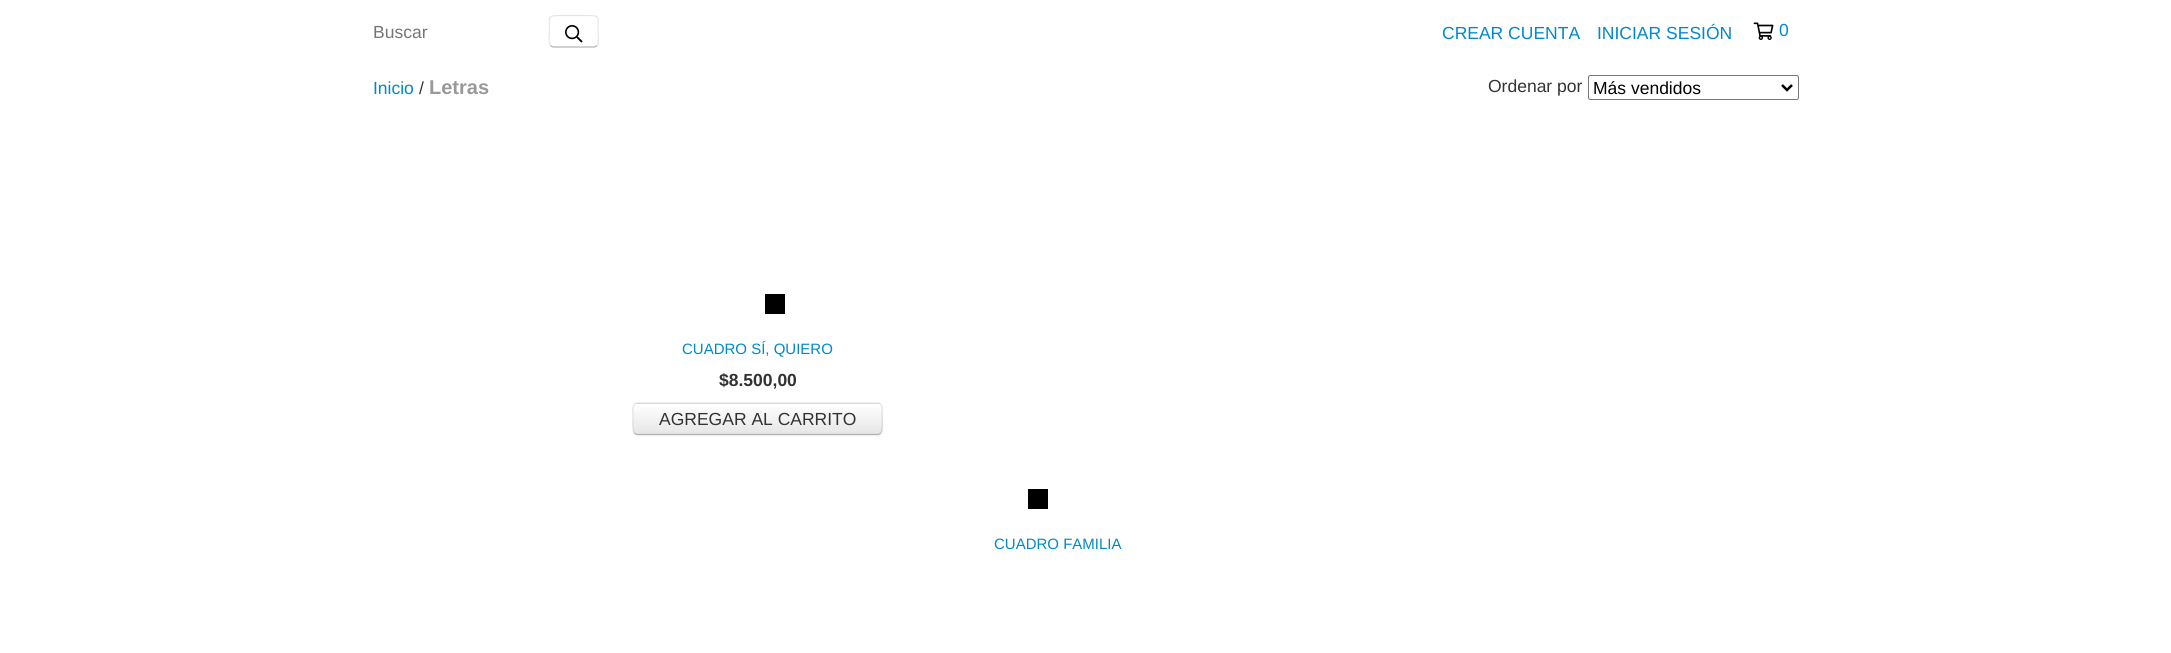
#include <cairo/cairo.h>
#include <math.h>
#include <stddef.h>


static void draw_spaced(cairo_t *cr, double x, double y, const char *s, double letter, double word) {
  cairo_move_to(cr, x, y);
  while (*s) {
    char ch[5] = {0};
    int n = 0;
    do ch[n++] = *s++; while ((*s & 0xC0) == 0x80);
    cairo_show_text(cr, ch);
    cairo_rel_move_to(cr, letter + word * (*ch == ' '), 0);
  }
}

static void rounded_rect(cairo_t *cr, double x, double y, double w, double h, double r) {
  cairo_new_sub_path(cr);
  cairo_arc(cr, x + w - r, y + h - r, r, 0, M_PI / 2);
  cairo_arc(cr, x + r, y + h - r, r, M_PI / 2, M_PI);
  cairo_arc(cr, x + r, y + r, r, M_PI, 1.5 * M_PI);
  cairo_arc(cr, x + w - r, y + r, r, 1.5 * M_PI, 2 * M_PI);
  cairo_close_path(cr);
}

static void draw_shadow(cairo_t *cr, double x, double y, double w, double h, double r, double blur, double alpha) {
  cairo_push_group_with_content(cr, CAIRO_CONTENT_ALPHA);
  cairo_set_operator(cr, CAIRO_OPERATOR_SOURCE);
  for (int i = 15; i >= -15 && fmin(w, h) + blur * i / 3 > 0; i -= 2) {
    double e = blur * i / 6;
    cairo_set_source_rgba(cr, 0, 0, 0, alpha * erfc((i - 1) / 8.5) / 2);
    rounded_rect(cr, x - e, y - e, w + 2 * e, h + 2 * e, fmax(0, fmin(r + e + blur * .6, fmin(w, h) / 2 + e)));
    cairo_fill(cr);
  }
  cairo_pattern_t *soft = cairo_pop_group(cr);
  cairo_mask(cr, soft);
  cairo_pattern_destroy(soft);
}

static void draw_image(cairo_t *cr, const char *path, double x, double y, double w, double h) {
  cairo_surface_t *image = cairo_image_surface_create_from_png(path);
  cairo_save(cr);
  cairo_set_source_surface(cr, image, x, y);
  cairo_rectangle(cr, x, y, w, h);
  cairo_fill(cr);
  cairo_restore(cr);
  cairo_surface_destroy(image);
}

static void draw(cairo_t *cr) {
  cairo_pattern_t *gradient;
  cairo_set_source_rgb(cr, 1, 1, 1);
  cairo_paint(cr);
  cairo_new_path(cr);
  cairo_move_to(cr, 597, 45.5);
  cairo_curve_to(cr, 596, 46.5, 595, 47, 594, 47);
  cairo_line_to(cr, 554, 47);
  cairo_curve_to(cr, 552.5, 47, 551.5, 46.5, 550.5, 45.5);
  cairo_set_source_rgb(cr, 179 / 255.0, 179 / 255.0, 179 / 255.0);
  cairo_set_line_width(cr, 1.2);
  cairo_stroke(cr);
  cairo_new_path(cr);
  cairo_move_to(cr, 550.5, 45.5);
  cairo_curve_to(cr, 548, 43, 549.5, 34.5, 549.5, 31);
  cairo_curve_to(cr, 549.5, 17, 546.5, 15.5, 560.5, 15.5);
  cairo_line_to(cr, 587, 15.5);
  cairo_curve_to(cr, 601, 15.5, 598, 17, 598, 31);
  cairo_curve_to(cr, 598, 34.5, 599.5, 43, 597, 45.5);
  cairo_set_source_rgba(cr, 0, 0, 0, 0.1);
  cairo_stroke(cr);
  draw_image(cr, "images/1.png", 565, 25, 18, 18);
  draw_image(cr, "images/2.png", 1753, 22, 21, 18);
  rounded_rect(cr, 1588.5, 75.5, 210, 24, 2);
  cairo_set_source_rgb(cr, 118 / 255.0, 118 / 255.0, 118 / 255.0);
  cairo_set_line_width(cr, 1);
  cairo_stroke(cr);
  cairo_new_path(cr);
  cairo_move_to(cr, 1782, 85);
  cairo_line_to(cr, 1787, 90);
  cairo_line_to(cr, 1792, 85);
  cairo_set_source_rgb(cr, 0, 0, 0);
  cairo_set_line_width(cr, 2.5);
  cairo_stroke(cr);
  cairo_rectangle(cr, 765, 294, 20, 20);
  cairo_fill(cr);
  cairo_set_source_rgb(cr, 0, 0, 0);
  draw_shadow(cr, 633, 404, 250, 32, 5, 1, 0.05);
  cairo_save(cr);
  rounded_rect(cr, 633, 403, 250, 32, 5);
  cairo_clip(cr);
  gradient = cairo_pattern_create_linear(758, 374, 758, 404);
  cairo_pattern_add_color_stop_rgba(gradient, 0, 1, 1, 1, 1);
  cairo_pattern_add_color_stop_rgba(gradient, 1, 230 / 255.0, 230 / 255.0, 230 / 255.0, 1);
  cairo_set_source(cr, gradient);
  cairo_pattern_destroy(gradient);
  cairo_rectangle(cr, 633, 403, 250, 1);
  cairo_fill(cr);
  gradient = cairo_pattern_create_linear(758, 404, 758, 434);
  cairo_pattern_add_color_stop_rgba(gradient, 0, 1, 1, 1, 1);
  cairo_pattern_add_color_stop_rgba(gradient, 1, 230 / 255.0, 230 / 255.0, 230 / 255.0, 1);
  cairo_set_source(cr, gradient);
  cairo_pattern_destroy(gradient);
  cairo_rectangle(cr, 633, 404, 250, 30);
  cairo_fill(cr);
  cairo_restore(cr);
  cairo_new_path(cr);
  cairo_move_to(cr, 880.5, 433);
  cairo_curve_to(cr, 880, 434, 878.5, 434.5, 877.5, 434.5);
  cairo_line_to(cr, 637.5, 434.5);
  cairo_curve_to(cr, 636.5, 434.5, 635, 434, 634.5, 433);
  cairo_set_source_rgb(cr, 179 / 255.0, 179 / 255.0, 179 / 255.0);
  cairo_set_line_width(cr, 1.2);
  cairo_stroke(cr);
  cairo_new_path(cr);
  cairo_move_to(cr, 634.5, 433);
  cairo_curve_to(cr, 632, 430.5, 633, 418.5, 633, 415);
  cairo_curve_to(cr, 633, 411.5, 631.5, 403, 637.5, 403);
  cairo_line_to(cr, 877.5, 403);
  cairo_curve_to(cr, 883.5, 403, 882, 411.5, 882, 415);
  cairo_curve_to(cr, 882, 418.5, 883, 430.5, 880.5, 433);
  cairo_set_source_rgba(cr, 0, 0, 0, 0.1);
  cairo_stroke(cr);
  cairo_set_source_rgb(cr, 0, 0, 0);
  cairo_rectangle(cr, 1028, 489, 20, 20);
  cairo_fill(cr);
  cairo_select_font_face(cr, "Liberation Sans", CAIRO_FONT_SLANT_NORMAL, CAIRO_FONT_WEIGHT_NORMAL);
  cairo_set_font_size(cr, 17.5);
  cairo_set_source_rgb(cr, 117 / 255.0, 117 / 255.0, 117 / 255.0);
  cairo_move_to(cr, 373, 38);
  cairo_show_text(cr, "Buscar");
  cairo_set_source_rgb(cr, 0, 136 / 255.0, 204 / 255.0);
  cairo_move_to(cr, 1442, 39);
  cairo_show_text(cr, "CREAR CUENTA");
  cairo_move_to(cr, 1597, 39);
  cairo_show_text(cr, "INICIAR SESIÓN");
  draw_spaced(cr, 1779, 36, "0", 1, 0);
  cairo_move_to(cr, 373, 94);
  cairo_show_text(cr, "Inicio");
  cairo_set_source_rgb(cr, 51 / 255.0, 51 / 255.0, 51 / 255.0);
  cairo_move_to(cr, 419, 94);
  cairo_show_text(cr, "/");
  cairo_select_font_face(cr, "Liberation Sans", CAIRO_FONT_SLANT_NORMAL, CAIRO_FONT_WEIGHT_BOLD);
  cairo_set_font_size(cr, 20);
  cairo_set_source_rgb(cr, 153 / 255.0, 153 / 255.0, 153 / 255.0);
  cairo_move_to(cr, 429, 94);
  cairo_show_text(cr, "Letras");
  cairo_select_font_face(cr, "Liberation Sans", CAIRO_FONT_SLANT_NORMAL, CAIRO_FONT_WEIGHT_NORMAL);
  cairo_set_font_size(cr, 17.5);
  cairo_set_source_rgb(cr, 51 / 255.0, 51 / 255.0, 51 / 255.0);
  cairo_move_to(cr, 1488, 92);
  cairo_show_text(cr, "Ordenar por");
  cairo_set_source_rgb(cr, 0, 0, 0);
  cairo_move_to(cr, 1593, 94);
  cairo_show_text(cr, "Más vendidos");
  cairo_set_font_size(cr, 15);
  cairo_set_source_rgb(cr, 0, 136 / 255.0, 204 / 255.0);
  cairo_move_to(cr, 682, 354);
  cairo_show_text(cr, "CUADRO SÍ, QUIERO");
  cairo_select_font_face(cr, "Liberation Sans", CAIRO_FONT_SLANT_NORMAL, CAIRO_FONT_WEIGHT_BOLD);
  cairo_set_font_size(cr, 17.5);
  cairo_set_source_rgb(cr, 51 / 255.0, 51 / 255.0, 51 / 255.0);
  cairo_move_to(cr, 719, 386);
  cairo_show_text(cr, "$8.500,00");
  cairo_select_font_face(cr, "Liberation Sans", CAIRO_FONT_SLANT_NORMAL, CAIRO_FONT_WEIGHT_NORMAL);
  cairo_move_to(cr, 659, 425);
  cairo_show_text(cr, "AGREGAR AL CARRITO");
  cairo_set_font_size(cr, 15);
  cairo_set_source_rgb(cr, 0, 136 / 255.0, 204 / 255.0);
  cairo_move_to(cr, 994, 549);
  cairo_show_text(cr, "CUADRO FAMILIA");
}

int main(void) {
  cairo_surface_t *surface = cairo_image_surface_create(CAIRO_FORMAT_RGB24, 2171, 653);
  cairo_t *cr = cairo_create(surface);
  cairo_font_options_t *options = cairo_font_options_create();
  cairo_font_options_set_hint_metrics(options, CAIRO_HINT_METRICS_OFF);
  cairo_font_options_set_hint_style(options, CAIRO_HINT_STYLE_NONE);
  cairo_set_font_options(cr, options);
  cairo_set_miter_limit(cr, 4);
  draw(cr);
  cairo_surface_write_to_png(surface, "out.png");
  cairo_font_options_destroy(options);
  cairo_destroy(cr);
  cairo_surface_destroy(surface);
  return 0;
}
